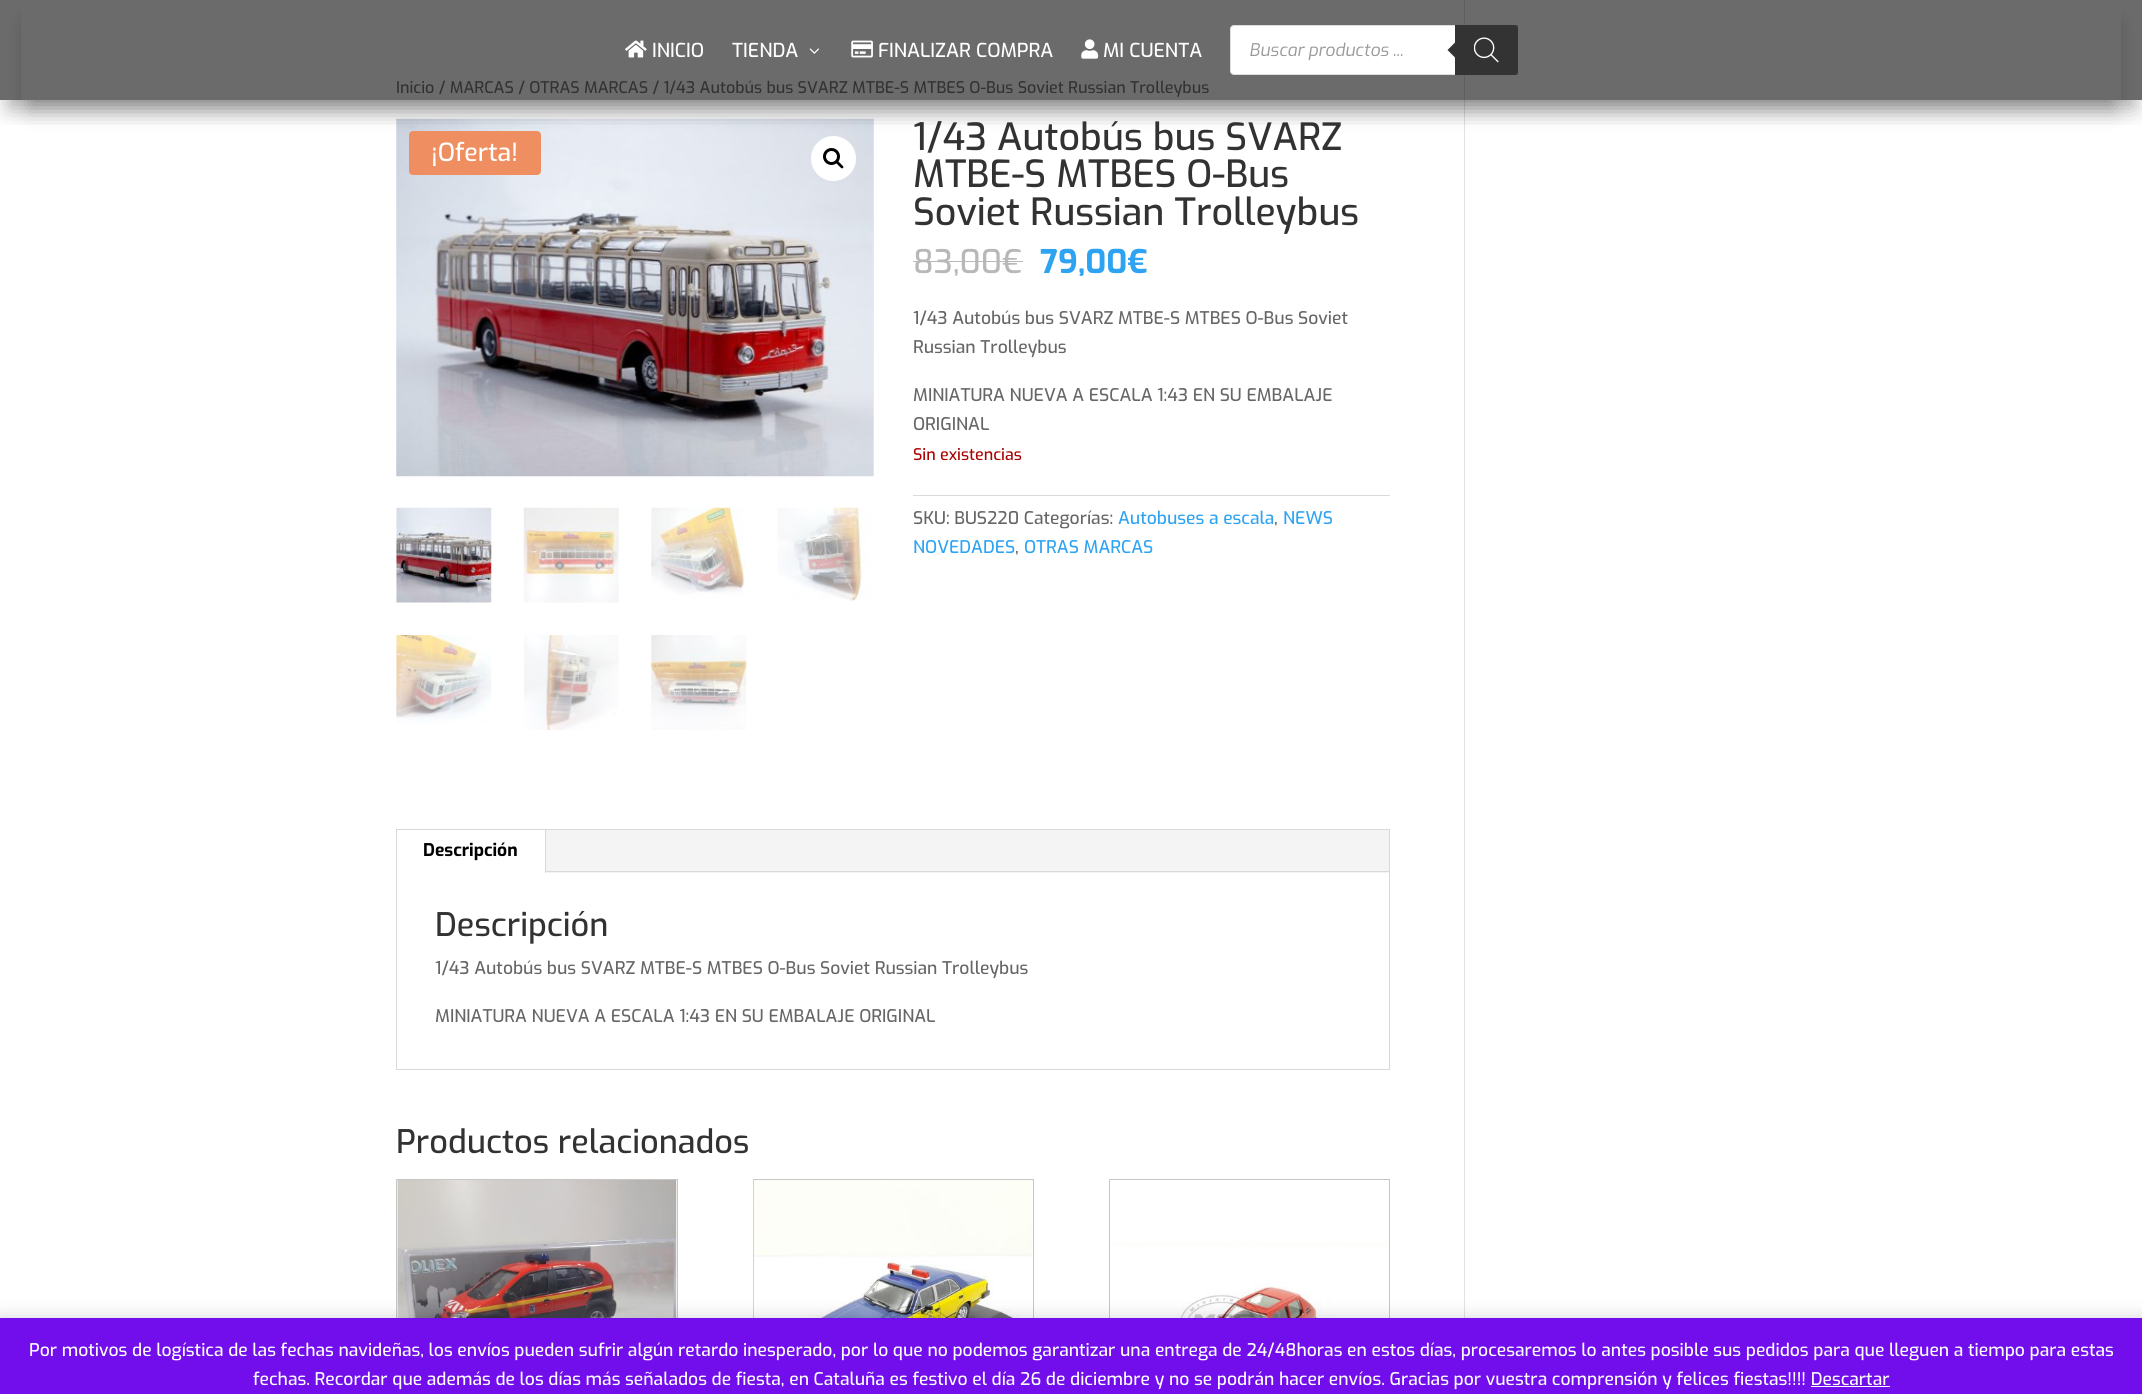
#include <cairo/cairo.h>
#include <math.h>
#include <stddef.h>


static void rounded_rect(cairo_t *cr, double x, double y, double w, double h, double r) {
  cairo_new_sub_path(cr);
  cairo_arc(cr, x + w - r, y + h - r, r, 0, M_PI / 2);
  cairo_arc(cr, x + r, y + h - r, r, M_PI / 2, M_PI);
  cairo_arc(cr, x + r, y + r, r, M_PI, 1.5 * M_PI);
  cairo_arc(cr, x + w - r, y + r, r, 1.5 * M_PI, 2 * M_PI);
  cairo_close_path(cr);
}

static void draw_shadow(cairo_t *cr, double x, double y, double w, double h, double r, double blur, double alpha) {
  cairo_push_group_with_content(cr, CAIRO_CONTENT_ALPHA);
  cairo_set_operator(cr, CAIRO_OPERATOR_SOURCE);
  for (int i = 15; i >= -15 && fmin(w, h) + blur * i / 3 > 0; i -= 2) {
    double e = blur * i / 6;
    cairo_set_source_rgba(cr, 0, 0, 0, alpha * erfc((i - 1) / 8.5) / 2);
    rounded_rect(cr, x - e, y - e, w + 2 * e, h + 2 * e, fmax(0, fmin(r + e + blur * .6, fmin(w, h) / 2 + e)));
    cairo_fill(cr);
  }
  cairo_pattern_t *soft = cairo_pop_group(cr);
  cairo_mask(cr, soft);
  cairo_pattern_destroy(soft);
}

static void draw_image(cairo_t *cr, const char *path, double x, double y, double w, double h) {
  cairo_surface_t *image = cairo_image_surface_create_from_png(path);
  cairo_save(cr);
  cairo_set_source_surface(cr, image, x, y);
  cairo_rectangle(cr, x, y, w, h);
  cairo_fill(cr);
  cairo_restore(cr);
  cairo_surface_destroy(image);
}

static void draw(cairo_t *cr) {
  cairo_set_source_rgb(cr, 1, 1, 1);
  cairo_paint(cr);
  cairo_set_source_rgb(cr, 107 / 255.0, 107 / 255.0, 107 / 255.0);
  cairo_rectangle(cr, 0, 0, 2142, 100);
  cairo_fill(cr);
  draw_image(cr, "images/7.png", 873, 118, 1, 358);
  draw_image(cr, "images/6.png", 396, 118, 478, 359);
  cairo_set_source_rgb(cr, 226 / 255.0, 226 / 255.0, 226 / 255.0);
  cairo_rectangle(cr, 1464, 100, 1, 1218);
  cairo_fill(cr);
  cairo_set_source_rgb(cr, 95 / 255.0, 95 / 255.0, 95 / 255.0);
  cairo_rectangle(cr, 1464, 0, 1, 100);
  cairo_fill(cr);
  cairo_save(cr);
  cairo_rectangle(cr, 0, 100, 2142, 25);
  cairo_clip(cr);
  cairo_set_source_rgb(cr, 0, 0, 0);
  draw_shadow(cr, 8, 23, 2127, 85, 0, 11, 0.3);
  cairo_restore(cr);
  cairo_save(cr);
  cairo_set_fill_rule(cr, CAIRO_FILL_RULE_EVEN_ODD);
  cairo_new_path(cr);
  cairo_move_to(cr, 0, 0);
  cairo_line_to(cr, 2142, 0);
  cairo_line_to(cr, 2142, 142);
  cairo_line_to(cr, 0, 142);
  cairo_close_path(cr);
  cairo_move_to(cr, 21, 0);
  cairo_line_to(cr, 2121, 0);
  cairo_line_to(cr, 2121, 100);
  cairo_line_to(cr, 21, 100);
  cairo_close_path(cr);
  cairo_clip(cr);
  cairo_set_source_rgb(cr, 0, 0, 0);
  draw_shadow(cr, 29, 23, 2085, 85, 0, 11, 0.3);
  cairo_restore(cr);
  draw_image(cr, "images/1.png", 625, 40, 22, 18);
  draw_image(cr, "images/2.png", 809, 48, 10, 6);
  draw_image(cr, "images/3.png", 851, 40, 22, 18);
  draw_image(cr, "images/4.png", 1081, 39, 18, 20);
  cairo_set_source_rgb(cr, 1, 1, 1);
  rounded_rect(cr, 1230.5, 25.5, 287, 49, 3.5);
  cairo_fill_preserve(cr);
  cairo_set_source_rgb(cr, 221 / 255.0, 221 / 255.0, 221 / 255.0);
  cairo_set_line_width(cr, 1);
  cairo_stroke(cr);
  cairo_set_source_rgb(cr, 51 / 255.0, 51 / 255.0, 51 / 255.0);
  cairo_new_path(cr);
  cairo_move_to(cr, 1455, 25);
  cairo_line_to(cr, 1515.5, 25);
  cairo_curve_to(cr, 1517, 25, 1518, 26, 1518, 27.5);
  cairo_line_to(cr, 1518, 72.5);
  cairo_curve_to(cr, 1518, 74, 1517, 75, 1515.5, 75);
  cairo_line_to(cr, 1455, 75);
  cairo_close_path(cr);
  cairo_fill(cr);
  cairo_new_path(cr);
  cairo_move_to(cr, 1457.5, 40);
  cairo_line_to(cr, 1457.5, 60);
  cairo_line_to(cr, 1447.5, 50);
  cairo_close_path(cr);
  cairo_fill(cr);
  draw_image(cr, "images/5.png", 1474, 37, 25, 26);
  cairo_set_source_rgb(cr, 1, 1, 1);
  cairo_arc(cr, 833.5, 158.5, 22.5, 0, 2 * M_PI);
  cairo_fill(cr);
  cairo_arc(cr, 831.5, 156.5, 7, 0, 2 * M_PI);
  cairo_set_source_rgb(cr, 0, 0, 0);
  cairo_set_line_width(cr, 3);
  cairo_stroke(cr);
  cairo_new_path(cr);
  cairo_move_to(cr, 836, 161);
  cairo_curve_to(cr, 837.5, 159.5, 839.5, 163, 840.5, 163.5);
  cairo_curve_to(cr, 841, 164.5, 844.5, 166.5, 843, 168);
  cairo_curve_to(cr, 841.5, 169.5, 839.5, 166, 838.5, 165.5);
  cairo_curve_to(cr, 838, 164.5, 834.5, 162.5, 836, 161);
  cairo_close_path(cr);
  cairo_fill(cr);
  draw_image(cr, "images/8.png", 396, 507, 96, 96);
  draw_image(cr, "images/9.png", 523, 507, 96, 96);
  draw_image(cr, "images/10.png", 651, 507, 95, 91);
  draw_image(cr, "images/11.png", 777, 507, 96, 94);
  draw_image(cr, "images/12.png", 396, 635, 96, 89);
  draw_image(cr, "images/13.png", 524, 635, 95, 95);
  draw_image(cr, "images/14.png", 651, 635, 96, 95);
  cairo_set_source_rgb(cr, 184 / 255.0, 184 / 255.0, 184 / 255.0);
  cairo_rectangle(cr, 913, 261, 90, 1);
  cairo_fill(cr);
  cairo_rectangle(cr, 1003, 261, 20, 1);
  cairo_fill(cr);
  cairo_set_source_rgb(cr, 218 / 255.0, 218 / 255.0, 218 / 255.0);
  cairo_rectangle(cr, 913, 495, 477, 1);
  cairo_fill(cr);
  cairo_set_source_rgb(cr, 239 / 255.0, 143 / 255.0, 97 / 255.0);
  rounded_rect(cr, 409, 131, 132, 44, 4);
  cairo_fill(cr);
  cairo_rectangle(cr, 396.5, 829.5, 993, 240);
  cairo_set_source_rgb(cr, 217 / 255.0, 217 / 255.0, 217 / 255.0);
  cairo_set_line_width(cr, 1);
  cairo_stroke(cr);
  cairo_set_source_rgb(cr, 244 / 255.0, 244 / 255.0, 244 / 255.0);
  cairo_rectangle(cr, 546, 830, 843, 43);
  cairo_fill(cr);
  cairo_set_source_rgb(cr, 217 / 255.0, 217 / 255.0, 217 / 255.0);
  cairo_rectangle(cr, 545, 830, 1, 43);
  cairo_fill(cr);
  cairo_rectangle(cr, 546, 871, 843, 1);
  cairo_fill(cr);
  cairo_rectangle(cr, 396.5, 1179.5, 281, 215);
  cairo_set_source_rgb(cr, 198 / 255.0, 198 / 255.0, 198 / 255.0);
  cairo_stroke(cr);
  draw_image(cr, "images/15.png", 397, 1180, 280, 138);
  cairo_rectangle(cr, 753.5, 1179.5, 280, 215);
  cairo_stroke(cr);
  draw_image(cr, "images/16.png", 753, 1180, 280, 138);
  cairo_rectangle(cr, 1109.5, 1179.5, 280, 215);
  cairo_stroke(cr);
  draw_image(cr, "images/17.png", 1110, 1242, 279, 76);
  cairo_set_source_rgb(cr, 0, 0, 0);
  draw_shadow(cr, 0, 1319, 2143, 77, 0, 9, 0.2);
  cairo_set_source_rgb(cr, 114 / 255.0, 14 / 255.0, 236 / 255.0);
  cairo_rectangle(cr, 0, 1318, 2142, 76);
  cairo_fill(cr);
  cairo_select_font_face(cr, "Exo Medium", CAIRO_FONT_SLANT_NORMAL, CAIRO_FONT_WEIGHT_NORMAL);
  cairo_set_font_size(cr, 19.25);
  cairo_set_source_rgb(cr, 1, 1, 1);
  cairo_move_to(cr, 652, 57);
  cairo_show_text(cr, "INICIO");
  cairo_move_to(cr, 732, 57);
  cairo_show_text(cr, "TIENDA");
  cairo_move_to(cr, 878, 57);
  cairo_show_text(cr, "FINALIZAR COMPRA");
  cairo_move_to(cr, 1103, 57);
  cairo_show_text(cr, "MI CUENTA");
  cairo_select_font_face(cr, "Exo", CAIRO_FONT_SLANT_ITALIC, CAIRO_FONT_WEIGHT_NORMAL);
  cairo_set_font_size(cr, 17.5);
  cairo_set_source_rgb(cr, 153 / 255.0, 153 / 255.0, 153 / 255.0);
  cairo_move_to(cr, 1249, 56);
  cairo_show_text(cr, "Buscar productos ...");
  cairo_select_font_face(cr, "Exo Medium", CAIRO_FONT_SLANT_NORMAL, CAIRO_FONT_WEIGHT_NORMAL);
  cairo_set_font_size(cr, 16.1);
  cairo_set_source_rgb(cr, 50 / 255.0, 50 / 255.0, 50 / 255.0);
  cairo_move_to(cr, 396, 93);
  cairo_show_text(cr, "Inicio / MARCAS / OTRAS MARCAS / 1/43 Autobús bus SVARZ MTBE-S MTBES O-Bus Soviet Russian Trolleybus");
  cairo_set_font_size(cr, 37.5);
  cairo_move_to(cr, 913, 150);
  cairo_show_text(cr, "1/43 Autobús bus SVARZ");
  cairo_move_to(cr, 913, 187);
  cairo_show_text(cr, "MTBE-S MTBES O-Bus");
  cairo_move_to(cr, 913, 225);
  cairo_show_text(cr, "Soviet Russian Trolleybus");
  cairo_set_font_size(cr, 32.5);
  cairo_set_source_rgb(cr, 184 / 255.0, 184 / 255.0, 184 / 255.0);
  cairo_move_to(cr, 913, 273);
  cairo_show_text(cr, "83,00");
  cairo_move_to(cr, 1002, 273);
  cairo_show_text(cr, "€");
  cairo_select_font_face(cr, "Exo", CAIRO_FONT_SLANT_NORMAL, CAIRO_FONT_WEIGHT_BOLD);
  cairo_set_source_rgb(cr, 46 / 255.0, 163 / 255.0, 242 / 255.0);
  cairo_move_to(cr, 1040, 273);
  cairo_show_text(cr, "79,00€");
  cairo_select_font_face(cr, "Exo Medium", CAIRO_FONT_SLANT_NORMAL, CAIRO_FONT_WEIGHT_NORMAL);
  cairo_set_font_size(cr, 17.5);
  cairo_set_source_rgb(cr, 102 / 255.0, 102 / 255.0, 102 / 255.0);
  cairo_move_to(cr, 913, 324);
  cairo_show_text(cr, "1/43 Autobús bus SVARZ MTBE-S MTBES O-Bus Soviet");
  cairo_move_to(cr, 913, 353);
  cairo_show_text(cr, "Russian Trolleybus");
  cairo_move_to(cr, 913, 401);
  cairo_show_text(cr, "MINIATURA NUEVA A ESCALA 1:43 EN SU EMBALAJE");
  cairo_move_to(cr, 913, 430);
  cairo_show_text(cr, "ORIGINAL");
  cairo_set_font_size(cr, 16.1);
  cairo_set_source_rgb(cr, 170 / 255.0, 0, 0);
  cairo_move_to(cr, 913, 460);
  cairo_show_text(cr, "Sin existencias");
  cairo_set_font_size(cr, 17.5);
  cairo_set_source_rgb(cr, 102 / 255.0, 102 / 255.0, 102 / 255.0);
  cairo_move_to(cr, 913, 524);
  cairo_show_text(cr, "SKU: BUS220 Categorías:");
  cairo_set_source_rgb(cr, 46 / 255.0, 163 / 255.0, 242 / 255.0);
  cairo_move_to(cr, 1118, 524);
  cairo_show_text(cr, "Autobuses a escala");
  cairo_set_source_rgb(cr, 102 / 255.0, 102 / 255.0, 102 / 255.0);
  cairo_move_to(cr, 1274, 524);
  cairo_show_text(cr, ",");
  cairo_set_source_rgb(cr, 46 / 255.0, 163 / 255.0, 242 / 255.0);
  cairo_move_to(cr, 1283, 524);
  cairo_show_text(cr, "NEWS");
  cairo_move_to(cr, 913, 553);
  cairo_show_text(cr, "NOVEDADES");
  cairo_set_source_rgb(cr, 102 / 255.0, 102 / 255.0, 102 / 255.0);
  cairo_move_to(cr, 1015, 553);
  cairo_show_text(cr, ",");
  cairo_set_source_rgb(cr, 46 / 255.0, 163 / 255.0, 242 / 255.0);
  cairo_move_to(cr, 1024, 553);
  cairo_show_text(cr, "OTRAS MARCAS");
  cairo_set_font_size(cr, 25);
  cairo_set_source_rgb(cr, 1, 1, 1);
  cairo_move_to(cr, 431, 161);
  cairo_show_text(cr, "¡Oferta!");
  cairo_select_font_face(cr, "Exo", CAIRO_FONT_SLANT_NORMAL, CAIRO_FONT_WEIGHT_BOLD);
  cairo_set_font_size(cr, 17.5);
  cairo_set_source_rgb(cr, 0, 0, 0);
  cairo_move_to(cr, 423, 856);
  cairo_show_text(cr, "Descripción");
  cairo_select_font_face(cr, "Exo Medium", CAIRO_FONT_SLANT_NORMAL, CAIRO_FONT_WEIGHT_NORMAL);
  cairo_set_font_size(cr, 32.5);
  cairo_set_source_rgb(cr, 50 / 255.0, 50 / 255.0, 50 / 255.0);
  cairo_move_to(cr, 435, 936);
  cairo_show_text(cr, "Descripción");
  cairo_set_font_size(cr, 17.5);
  cairo_set_source_rgb(cr, 102 / 255.0, 102 / 255.0, 102 / 255.0);
  cairo_move_to(cr, 435, 974);
  cairo_show_text(cr, "1/43 Autobús bus SVARZ MTBE-S MTBES O-Bus Soviet Russian Trolleybus");
  cairo_move_to(cr, 435, 1022);
  cairo_show_text(cr, "MINIATURA NUEVA A ESCALA 1:43 EN SU EMBALAJE ORIGINAL");
  cairo_set_font_size(cr, 32.5);
  cairo_set_source_rgb(cr, 50 / 255.0, 50 / 255.0, 50 / 255.0);
  cairo_move_to(cr, 396, 1153);
  cairo_show_text(cr, "Productos relacionados");
  cairo_set_font_size(cr, 17.5);
  cairo_set_source_rgb(cr, 1, 1, 1);
  cairo_move_to(cr, 29, 1356);
  cairo_show_text(cr, "Por motivos de logística de las fechas navideñas, los envíos pueden sufrir algún retardo inesperado, por lo que no podemos garantizar una entrega de 24/48horas en estos días, procesaremos lo antes posible sus pedidos para que lleguen a tiempo para estas");
  cairo_move_to(cr, 253, 1385);
  cairo_show_text(cr, "fechas. Recordar que además de los días más señalados de fiesta, en Cataluña es festivo el día 26 de diciembre y no se podrán hacer envíos. Gracias por vuestra comprensión y felices fiestas!!!! Descartar");
  cairo_set_source_rgb(cr, 252 / 255.0, 251 / 255.0, 254 / 255.0);
  cairo_rectangle(cr, 1811, 1386, 79, 1);
  cairo_fill(cr);
}

int main(void) {
  cairo_surface_t *surface = cairo_image_surface_create(CAIRO_FORMAT_RGB24, 2142, 1394);
  cairo_t *cr = cairo_create(surface);
  cairo_font_options_t *options = cairo_font_options_create();
  cairo_font_options_set_hint_metrics(options, CAIRO_HINT_METRICS_OFF);
  cairo_font_options_set_hint_style(options, CAIRO_HINT_STYLE_NONE);
  cairo_set_font_options(cr, options);
  cairo_set_miter_limit(cr, 4);
  draw(cr);
  cairo_surface_write_to_png(surface, "out.png");
  cairo_font_options_destroy(options);
  cairo_destroy(cr);
  cairo_surface_destroy(surface);
  return 0;
}
